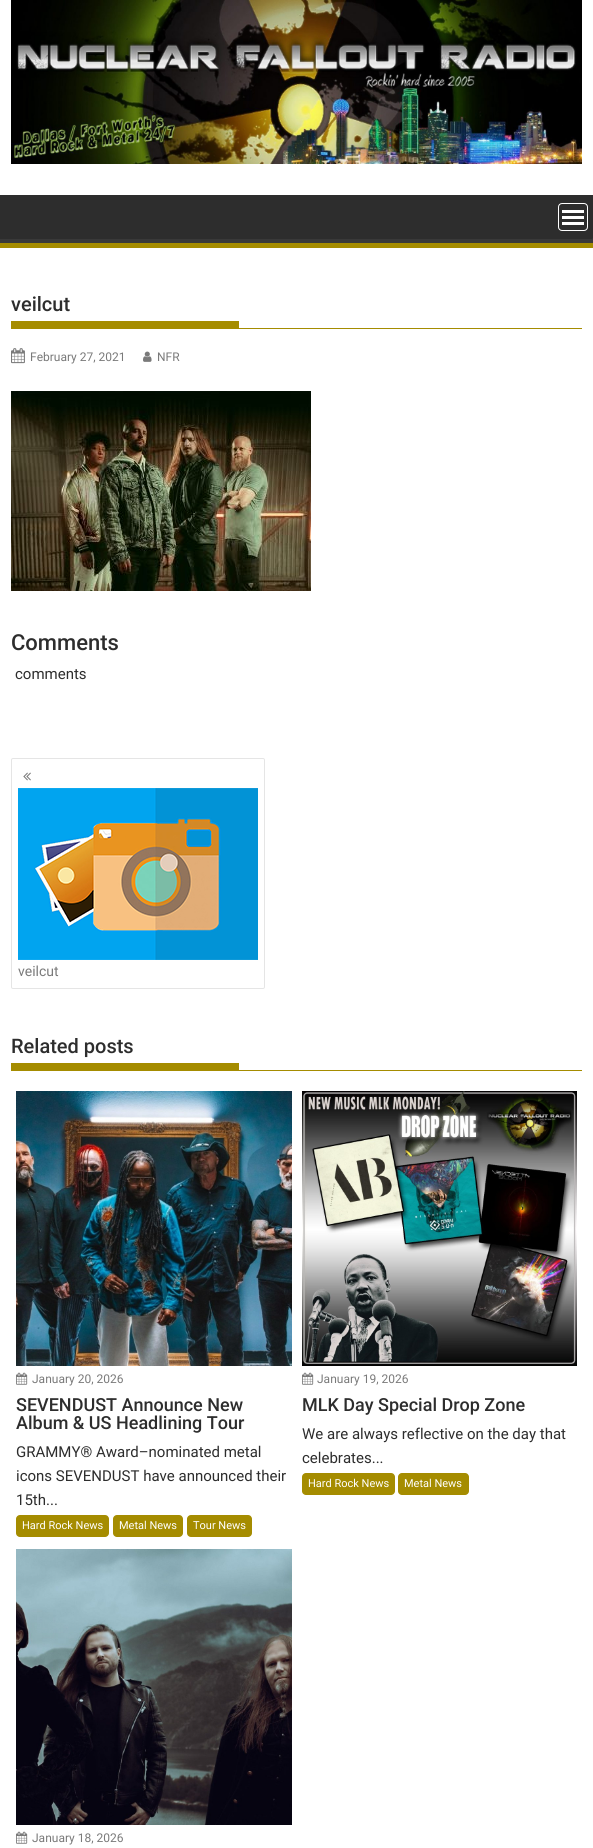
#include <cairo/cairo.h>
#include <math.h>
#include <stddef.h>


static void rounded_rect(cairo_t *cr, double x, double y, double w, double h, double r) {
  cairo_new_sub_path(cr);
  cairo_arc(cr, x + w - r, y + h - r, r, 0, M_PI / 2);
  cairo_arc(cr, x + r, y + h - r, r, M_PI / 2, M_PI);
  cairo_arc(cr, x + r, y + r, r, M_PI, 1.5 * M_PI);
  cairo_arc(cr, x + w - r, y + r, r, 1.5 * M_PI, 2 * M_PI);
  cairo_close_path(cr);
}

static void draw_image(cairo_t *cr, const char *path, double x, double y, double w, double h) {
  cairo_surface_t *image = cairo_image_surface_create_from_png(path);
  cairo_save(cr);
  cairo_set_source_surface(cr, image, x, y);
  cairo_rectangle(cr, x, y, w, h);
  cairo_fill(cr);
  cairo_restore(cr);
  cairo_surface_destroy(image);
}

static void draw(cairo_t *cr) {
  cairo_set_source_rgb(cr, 1, 1, 1);
  cairo_paint(cr);
  draw_image(cr, "images/1.png", 11, 0, 571, 164);
  cairo_set_source_rgb(cr, 45 / 255.0, 45 / 255.0, 45 / 255.0);
  cairo_rectangle(cr, 0, 195, 593, 44);
  cairo_fill(cr);
  cairo_save(cr);
  cairo_rectangle(cr, 0, 195, 593, 48);
  cairo_clip(cr);
  cairo_set_source_rgb(cr, 57 / 255.0, 57 / 255.0, 57 / 255.0);
  cairo_set_fill_rule(cr, CAIRO_FILL_RULE_EVEN_ODD);
  cairo_new_path(cr);
  cairo_move_to(cr, -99, 96);
  cairo_line_to(cr, 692, 96);
  cairo_line_to(cr, 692, 342);
  cairo_line_to(cr, -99, 342);
  cairo_close_path(cr);
  cairo_move_to(cr, -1, 189);
  cairo_line_to(cr, 592, 189);
  cairo_curve_to(cr, 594, 189, 593, 197, 593, 198);
  cairo_line_to(cr, 593, 238);
  cairo_line_to(cr, 592, 239);
  cairo_line_to(cr, -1, 239);
  cairo_line_to(cr, -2, 238);
  cairo_line_to(cr, -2, 190);
  cairo_close_path(cr);
  cairo_fill(cr);
  cairo_restore(cr);
  cairo_set_source_rgb(cr, 165 / 255.0, 140 / 255.0, 0);
  cairo_rectangle(cr, 0, 243, 593, 5);
  cairo_fill(cr);
  rounded_rect(cr, 558.5, 203.5, 29, 27, 3.5);
  cairo_set_source_rgb(cr, 1, 1, 1);
  cairo_set_line_width(cr, 1);
  cairo_stroke(cr);
  cairo_rectangle(cr, 562, 222, 22, 3);
  cairo_fill(cr);
  cairo_rectangle(cr, 562, 216, 22, 3);
  cairo_fill(cr);
  cairo_rectangle(cr, 562, 210, 22, 3);
  cairo_fill(cr);
  cairo_set_source_rgb(cr, 165 / 255.0, 140 / 255.0, 0);
  cairo_rectangle(cr, 11, 328, 571, 1);
  cairo_fill(cr);
  cairo_rectangle(cr, 11, 321, 228, 7);
  cairo_fill(cr);
  draw_image(cr, "images/2.png", 11, 348, 14, 16);
  draw_image(cr, "images/3.png", 143, 351, 9, 11);
  draw_image(cr, "images/4.png", 11, 391, 300, 200);
  rounded_rect(cr, 11.5, 758.5, 253, 230, 1.5);
  cairo_set_source_rgb(cr, 229 / 255.0, 229 / 255.0, 229 / 255.0);
  cairo_stroke(cr);
  draw_image(cr, "images/5.png", 23, 772, 8, 9);
  draw_image(cr, "images/6.png", 18, 788, 240, 172);
  cairo_set_source_rgb(cr, 165 / 255.0, 140 / 255.0, 0);
  cairo_rectangle(cr, 11, 1070, 571, 1);
  cairo_fill(cr);
  cairo_rectangle(cr, 11, 1063, 228, 7);
  cairo_fill(cr);
  draw_image(cr, "images/7.png", 16, 1091, 276, 275);
  draw_image(cr, "images/8.png", 16, 1372, 12, 13);
  rounded_rect(cr, 16, 1515, 93, 22, 4);
  cairo_fill(cr);
  rounded_rect(cr, 113, 1515, 70, 22, 4);
  cairo_fill(cr);
  rounded_rect(cr, 187, 1515, 65, 22, 4);
  cairo_fill(cr);
  draw_image(cr, "images/9.png", 302, 1091, 275, 275);
  draw_image(cr, "images/8.png", 302, 1372, 12, 13);
  rounded_rect(cr, 302, 1473, 93, 22, 4);
  cairo_fill(cr);
  rounded_rect(cr, 398, 1473, 71, 22, 4);
  cairo_fill(cr);
  draw_image(cr, "images/10.png", 16, 1549, 276, 276);
  draw_image(cr, "images/8.png", 16, 1831, 12, 13);
  cairo_select_font_face(cr, "Roboto Medium", CAIRO_FONT_SLANT_NORMAL, CAIRO_FONT_WEIGHT_NORMAL);
  cairo_set_font_size(cr, 20);
  cairo_set_source_rgb(cr, 45 / 255.0, 45 / 255.0, 45 / 255.0);
  cairo_move_to(cr, 11, 311);
  cairo_show_text(cr, "veilcut");
  cairo_select_font_face(cr, "Roboto", CAIRO_FONT_SLANT_NORMAL, CAIRO_FONT_WEIGHT_NORMAL);
  cairo_set_font_size(cr, 12);
  cairo_set_source_rgb(cr, 122 / 255.0, 122 / 255.0, 122 / 255.0);
  cairo_move_to(cr, 30, 361);
  cairo_show_text(cr, "February 27, 2021");
  cairo_move_to(cr, 157, 361);
  cairo_show_text(cr, "NFR");
  cairo_select_font_face(cr, "Roboto Medium", CAIRO_FONT_SLANT_NORMAL, CAIRO_FONT_WEIGHT_NORMAL);
  cairo_set_font_size(cr, 22);
  cairo_set_source_rgb(cr, 45 / 255.0, 45 / 255.0, 45 / 255.0);
  cairo_move_to(cr, 11, 650);
  cairo_show_text(cr, "Comments");
  cairo_select_font_face(cr, "Roboto", CAIRO_FONT_SLANT_NORMAL, CAIRO_FONT_WEIGHT_NORMAL);
  cairo_set_font_size(cr, 15);
  cairo_move_to(cr, 15, 679);
  cairo_show_text(cr, "comments");
  cairo_set_font_size(cr, 14);
  cairo_set_source_rgb(cr, 122 / 255.0, 122 / 255.0, 122 / 255.0);
  cairo_move_to(cr, 18, 976);
  cairo_show_text(cr, "veilcut");
  cairo_select_font_face(cr, "Roboto Medium", CAIRO_FONT_SLANT_NORMAL, CAIRO_FONT_WEIGHT_NORMAL);
  cairo_set_font_size(cr, 20);
  cairo_set_source_rgb(cr, 45 / 255.0, 45 / 255.0, 45 / 255.0);
  cairo_move_to(cr, 11, 1053);
  cairo_show_text(cr, "Related posts");
  cairo_select_font_face(cr, "Roboto", CAIRO_FONT_SLANT_NORMAL, CAIRO_FONT_WEIGHT_NORMAL);
  cairo_set_font_size(cr, 12);
  cairo_set_source_rgb(cr, 122 / 255.0, 122 / 255.0, 122 / 255.0);
  cairo_move_to(cr, 32, 1383);
  cairo_show_text(cr, "January 20, 2026");
  cairo_select_font_face(cr, "Roboto Medium", CAIRO_FONT_SLANT_NORMAL, CAIRO_FONT_WEIGHT_NORMAL);
  cairo_set_font_size(cr, 18);
  cairo_set_source_rgb(cr, 45 / 255.0, 45 / 255.0, 45 / 255.0);
  cairo_move_to(cr, 16, 1411);
  cairo_show_text(cr, "SEVENDUST Announce New");
  cairo_move_to(cr, 16, 1429);
  cairo_show_text(cr, "Album & US Headlining Tour");
  cairo_select_font_face(cr, "Roboto", CAIRO_FONT_SLANT_NORMAL, CAIRO_FONT_WEIGHT_NORMAL);
  cairo_set_font_size(cr, 15);
  cairo_move_to(cr, 16, 1457);
  cairo_show_text(cr, "GRAMMY® Award–nominated metal");
  cairo_move_to(cr, 16, 1481);
  cairo_show_text(cr, "icons SEVENDUST have announced their");
  cairo_move_to(cr, 16, 1505);
  cairo_show_text(cr, "15th...");
  cairo_set_font_size(cr, 11);
  cairo_set_source_rgb(cr, 1, 1, 1);
  cairo_move_to(cr, 22, 1529);
  cairo_show_text(cr, "Hard Rock News");
  cairo_move_to(cr, 119, 1529);
  cairo_show_text(cr, "Metal News");
  cairo_move_to(cr, 193, 1529);
  cairo_show_text(cr, "Tour News");
  cairo_set_font_size(cr, 12);
  cairo_set_source_rgb(cr, 122 / 255.0, 122 / 255.0, 122 / 255.0);
  cairo_move_to(cr, 317, 1383);
  cairo_show_text(cr, "January 19, 2026");
  cairo_select_font_face(cr, "Roboto Medium", CAIRO_FONT_SLANT_NORMAL, CAIRO_FONT_WEIGHT_NORMAL);
  cairo_set_font_size(cr, 18);
  cairo_set_source_rgb(cr, 45 / 255.0, 45 / 255.0, 45 / 255.0);
  cairo_move_to(cr, 302, 1411);
  cairo_show_text(cr, "MLK Day Special Drop Zone");
  cairo_select_font_face(cr, "Roboto", CAIRO_FONT_SLANT_NORMAL, CAIRO_FONT_WEIGHT_NORMAL);
  cairo_set_font_size(cr, 15);
  cairo_move_to(cr, 302, 1439);
  cairo_show_text(cr, "We are always reflective on the day that");
  cairo_move_to(cr, 302, 1463);
  cairo_show_text(cr, "celebrates...");
  cairo_set_font_size(cr, 11);
  cairo_set_source_rgb(cr, 1, 1, 1);
  cairo_move_to(cr, 308, 1487);
  cairo_show_text(cr, "Hard Rock News");
  cairo_move_to(cr, 404, 1487);
  cairo_show_text(cr, "Metal News");
  cairo_set_font_size(cr, 12);
  cairo_set_source_rgb(cr, 122 / 255.0, 122 / 255.0, 122 / 255.0);
  cairo_move_to(cr, 32, 1842);
  cairo_show_text(cr, "January 18, 2026");
}

int main(void) {
  cairo_surface_t *surface = cairo_image_surface_create(CAIRO_FORMAT_RGB24, 593, 1848);
  cairo_t *cr = cairo_create(surface);
  cairo_font_options_t *options = cairo_font_options_create();
  cairo_font_options_set_hint_metrics(options, CAIRO_HINT_METRICS_OFF);
  cairo_font_options_set_hint_style(options, CAIRO_HINT_STYLE_NONE);
  cairo_set_font_options(cr, options);
  cairo_set_miter_limit(cr, 4);
  draw(cr);
  cairo_surface_write_to_png(surface, "out.png");
  cairo_font_options_destroy(options);
  cairo_destroy(cr);
  cairo_surface_destroy(surface);
  return 0;
}
